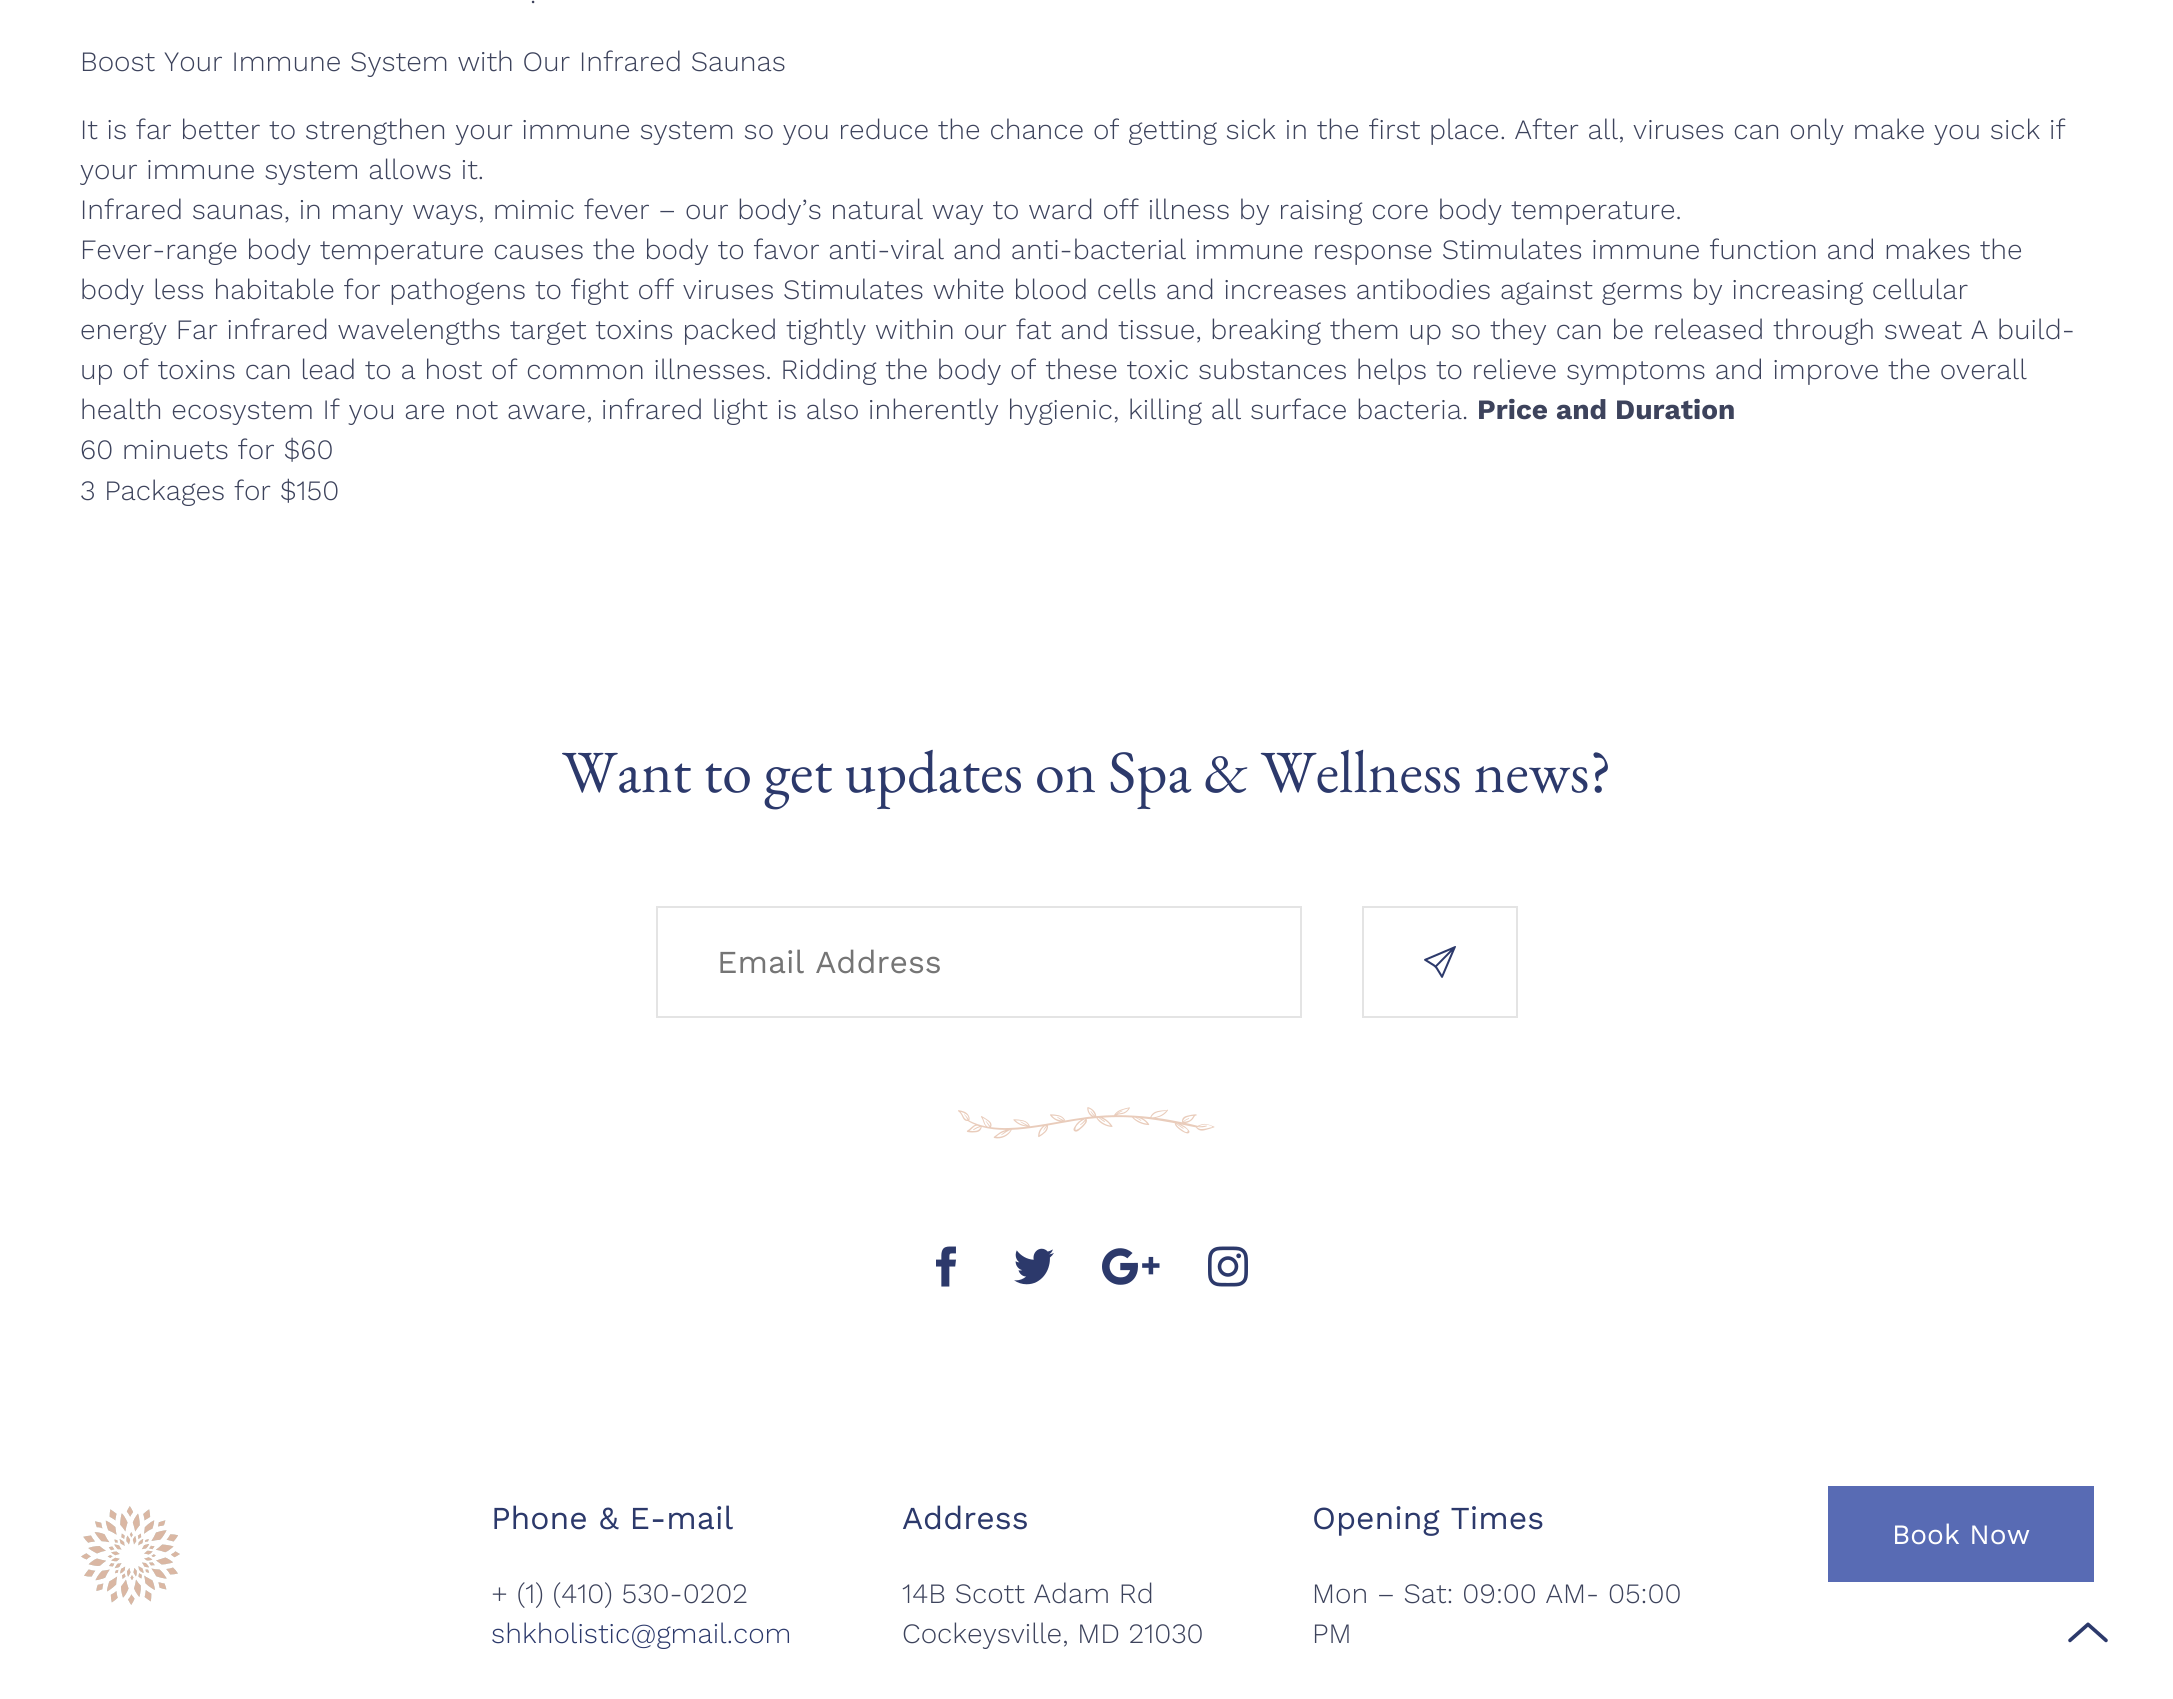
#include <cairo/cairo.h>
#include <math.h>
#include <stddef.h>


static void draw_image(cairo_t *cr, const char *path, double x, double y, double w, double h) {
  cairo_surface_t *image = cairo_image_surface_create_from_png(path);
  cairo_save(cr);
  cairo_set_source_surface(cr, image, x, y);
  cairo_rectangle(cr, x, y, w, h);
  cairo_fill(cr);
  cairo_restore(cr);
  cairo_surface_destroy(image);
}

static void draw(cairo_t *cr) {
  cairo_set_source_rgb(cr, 1, 1, 1);
  cairo_paint(cr);
  cairo_rectangle(cr, 657, 907, 644, 110);
  cairo_set_source_rgb(cr, 228 / 255.0, 228 / 255.0, 228 / 255.0);
  cairo_stroke(cr);
  cairo_rectangle(cr, 1363, 907, 154, 110);
  cairo_stroke(cr);
  draw_image(cr, "images/1.png", 1424, 946, 32, 32);
  draw_image(cr, "images/2.png", 958, 1107, 257, 32);
  draw_image(cr, "images/3.png", 936, 1246, 20, 41);
  draw_image(cr, "images/4.png", 1014, 1248, 40, 37);
  draw_image(cr, "images/5.png", 1102, 1248, 58, 37);
  draw_image(cr, "images/6.png", 1208, 1246, 40, 41);
  draw_image(cr, "images/7.png", 81, 1506, 99, 99);
  cairo_set_source_rgb(cr, 88 / 255.0, 107 / 255.0, 180 / 255.0);
  cairo_rectangle(cr, 1828, 1486, 266, 96);
  cairo_fill(cr);
  draw_image(cr, "images/8.png", 2068, 1622, 40, 21);
  cairo_select_font_face(cr, "Work Sans Light", CAIRO_FONT_SLANT_NORMAL, CAIRO_FONT_WEIGHT_NORMAL);
  cairo_set_font_size(cr, 28);
  cairo_set_source_rgb(cr, 61 / 255.0, 67 / 255.0, 92 / 255.0);
  cairo_move_to(cr, 530, 3);
  cairo_show_text(cr, ".");
  cairo_move_to(cr, 80, 71);
  cairo_show_text(cr, "Boost Your Immune System with Our Infrared Saunas");
  cairo_move_to(cr, 80, 139);
  cairo_show_text(cr, "It is far better to strengthen your immune system so you reduce the chance of getting sick in the first place. After all, viruses can only make you sick if");
  cairo_move_to(cr, 80, 179);
  cairo_show_text(cr, "your immune system allows it.");
  cairo_move_to(cr, 80, 219);
  cairo_show_text(cr, "Infrared saunas, in many ways, mimic fever – our body’s natural way to ward off illness by raising core body temperature.");
  cairo_move_to(cr, 80, 259);
  cairo_show_text(cr, "Fever-range body temperature causes the body to favor anti-viral and anti-bacterial immune response Stimulates immune function and makes the");
  cairo_move_to(cr, 80, 299);
  cairo_show_text(cr, "body less habitable for pathogens to fight off viruses Stimulates white blood cells and increases antibodies against germs by increasing cellular");
  cairo_move_to(cr, 80, 339);
  cairo_show_text(cr, "energy Far infrared wavelengths target toxins packed tightly within our fat and tissue, breaking them up so they can be released through sweat A build-");
  cairo_move_to(cr, 80, 379);
  cairo_show_text(cr, "up of toxins can lead to a host of common illnesses. Ridding the body of these toxic substances helps to relieve symptoms and improve the overall");
  cairo_move_to(cr, 80, 419);
  cairo_show_text(cr, "health ecosystem If you are not aware, infrared light is also inherently hygienic, killing all surface bacteria.");
  cairo_select_font_face(cr, "Work Sans", CAIRO_FONT_SLANT_NORMAL, CAIRO_FONT_WEIGHT_BOLD);
  cairo_move_to(cr, 1477, 419);
  cairo_show_text(cr, "Price and Duration");
  cairo_select_font_face(cr, "Work Sans Light", CAIRO_FONT_SLANT_NORMAL, CAIRO_FONT_WEIGHT_NORMAL);
  cairo_move_to(cr, 80, 459);
  cairo_show_text(cr, "60 minuets for $60");
  cairo_move_to(cr, 80, 500);
  cairo_show_text(cr, "3 Packages for $150");
  cairo_select_font_face(cr, "EB Garamond", CAIRO_FONT_SLANT_NORMAL, CAIRO_FONT_WEIGHT_NORMAL);
  cairo_set_font_size(cr, 60);
  cairo_set_source_rgb(cr, 44 / 255.0, 57 / 255.0, 107 / 255.0);
  cairo_move_to(cr, 562, 792);
  cairo_show_text(cr, "Want to get updates on Spa & Wellness news?");
  cairo_select_font_face(cr, "Work Sans", CAIRO_FONT_SLANT_NORMAL, CAIRO_FONT_WEIGHT_NORMAL);
  cairo_set_font_size(cr, 32);
  cairo_set_source_rgb(cr, 117 / 255.0, 117 / 255.0, 117 / 255.0);
  cairo_move_to(cr, 717, 973);
  cairo_show_text(cr, "Email Address");
  cairo_set_source_rgb(cr, 44 / 255.0, 57 / 255.0, 107 / 255.0);
  cairo_move_to(cr, 491, 1529);
  cairo_show_text(cr, "Phone & E-mail");
  cairo_select_font_face(cr, "Work Sans Light", CAIRO_FONT_SLANT_NORMAL, CAIRO_FONT_WEIGHT_NORMAL);
  cairo_set_font_size(cr, 28);
  cairo_set_source_rgb(cr, 61 / 255.0, 67 / 255.0, 92 / 255.0);
  cairo_move_to(cr, 491, 1603);
  cairo_show_text(cr, "+ (1) (410) 530-0202");
  cairo_set_source_rgb(cr, 44 / 255.0, 57 / 255.0, 107 / 255.0);
  cairo_move_to(cr, 491, 1643);
  cairo_show_text(cr, "shkholistic@gmail.com");
  cairo_select_font_face(cr, "Work Sans", CAIRO_FONT_SLANT_NORMAL, CAIRO_FONT_WEIGHT_NORMAL);
  cairo_set_font_size(cr, 32);
  cairo_move_to(cr, 902, 1529);
  cairo_show_text(cr, "Address");
  cairo_select_font_face(cr, "Work Sans Light", CAIRO_FONT_SLANT_NORMAL, CAIRO_FONT_WEIGHT_NORMAL);
  cairo_set_font_size(cr, 28);
  cairo_set_source_rgb(cr, 61 / 255.0, 67 / 255.0, 92 / 255.0);
  cairo_move_to(cr, 902, 1603);
  cairo_show_text(cr, "14B Scott Adam Rd");
  cairo_move_to(cr, 902, 1643);
  cairo_show_text(cr, "Cockeysville, MD 21030");
  cairo_select_font_face(cr, "Work Sans", CAIRO_FONT_SLANT_NORMAL, CAIRO_FONT_WEIGHT_NORMAL);
  cairo_set_font_size(cr, 32);
  cairo_set_source_rgb(cr, 44 / 255.0, 57 / 255.0, 107 / 255.0);
  cairo_move_to(cr, 1312, 1529);
  cairo_show_text(cr, "Opening Times");
  cairo_select_font_face(cr, "Work Sans Light", CAIRO_FONT_SLANT_NORMAL, CAIRO_FONT_WEIGHT_NORMAL);
  cairo_set_font_size(cr, 28);
  cairo_set_source_rgb(cr, 61 / 255.0, 67 / 255.0, 92 / 255.0);
  cairo_move_to(cr, 1312, 1603);
  cairo_show_text(cr, "Mon – Sat: 09:00 AM- 05:00");
  cairo_move_to(cr, 1312, 1643);
  cairo_show_text(cr, "PM");
  cairo_select_font_face(cr, "Work Sans", CAIRO_FONT_SLANT_NORMAL, CAIRO_FONT_WEIGHT_NORMAL);
  cairo_set_source_rgb(cr, 1, 1, 1);
  cairo_move_to(cr, 1892, 1544);
  cairo_show_text(cr, "Book Now");
}

int main(void) {
  cairo_surface_t *surface = cairo_image_surface_create(CAIRO_FORMAT_RGB24, 2173, 1699);
  cairo_t *cr = cairo_create(surface);
  cairo_font_options_t *options = cairo_font_options_create();
  cairo_font_options_set_hint_metrics(options, CAIRO_HINT_METRICS_OFF);
  cairo_font_options_set_hint_style(options, CAIRO_HINT_STYLE_NONE);
  cairo_set_font_options(cr, options);
  cairo_set_miter_limit(cr, 4);
  draw(cr);
  cairo_surface_write_to_png(surface, "out.png");
  cairo_font_options_destroy(options);
  cairo_destroy(cr);
  cairo_surface_destroy(surface);
  return 0;
}
